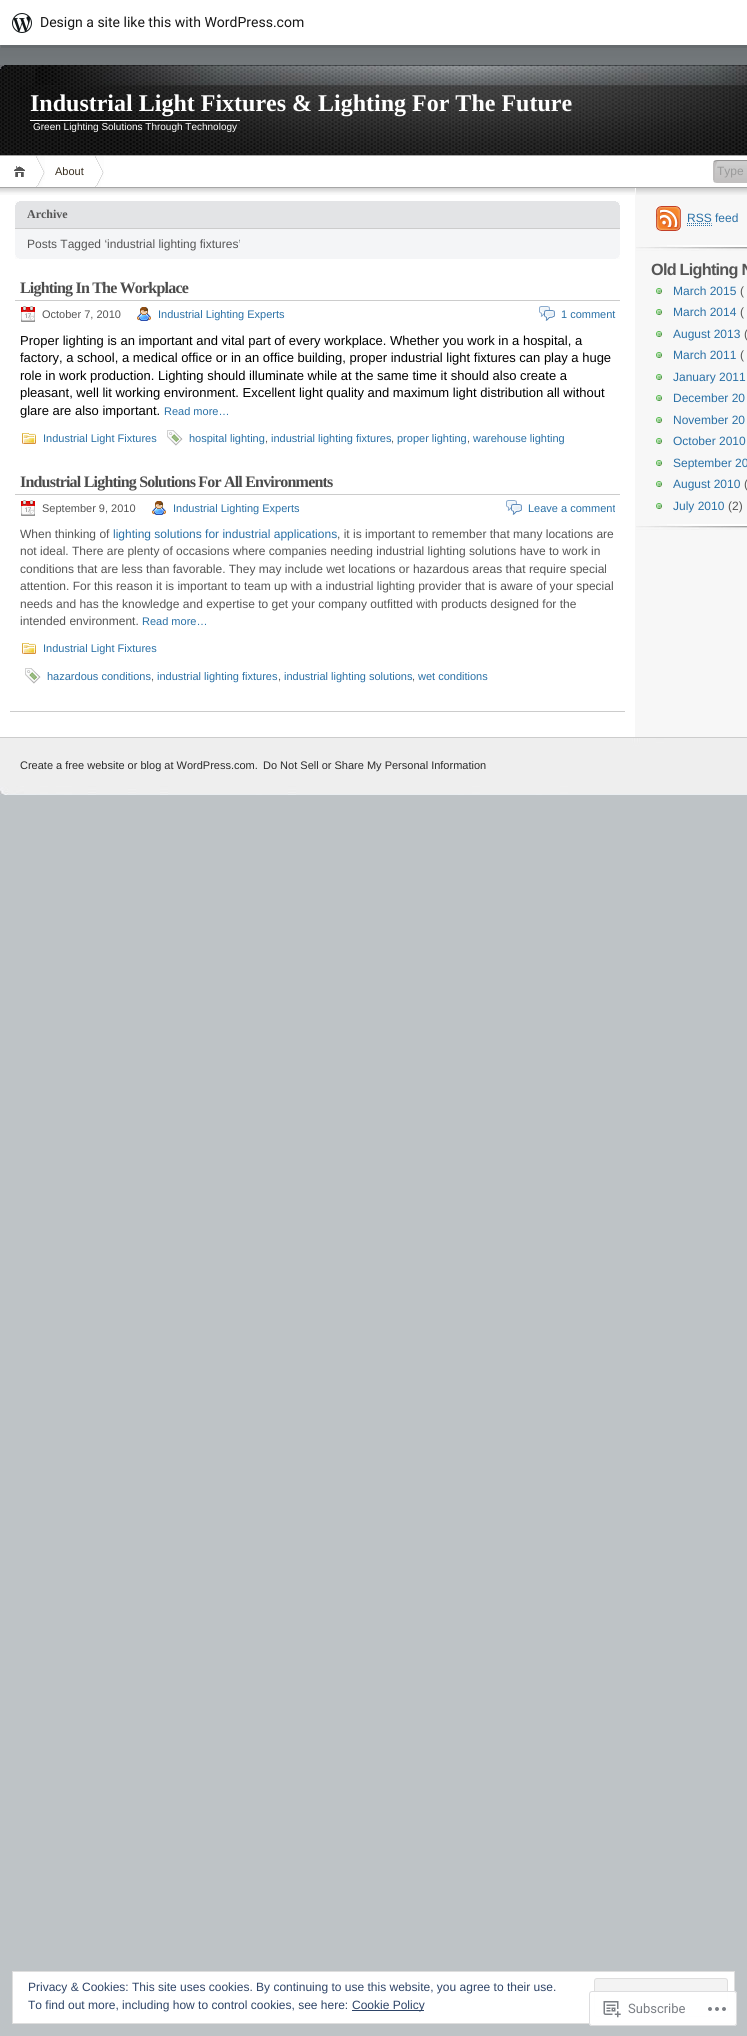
#include <cairo/cairo.h>
#include <math.h>
#include <stddef.h>


static void draw_spaced(cairo_t *cr, double x, double y, const char *s, double letter, double word) {
  cairo_move_to(cr, x, y);
  while (*s) {
    char ch[5] = {0};
    int n = 0;
    do ch[n++] = *s++; while ((*s & 0xC0) == 0x80);
    cairo_show_text(cr, ch);
    cairo_rel_move_to(cr, letter + word * (*ch == ' '), 0);
  }
}

static void rounded_rect(cairo_t *cr, double x, double y, double w, double h, double r) {
  cairo_new_sub_path(cr);
  cairo_arc(cr, x + w - r, y + h - r, r, 0, M_PI / 2);
  cairo_arc(cr, x + r, y + h - r, r, M_PI / 2, M_PI);
  cairo_arc(cr, x + r, y + r, r, M_PI, 1.5 * M_PI);
  cairo_arc(cr, x + w - r, y + r, r, 1.5 * M_PI, 2 * M_PI);
  cairo_close_path(cr);
}

static void draw_image(cairo_t *cr, const char *path, double x, double y, double w, double h) {
  cairo_surface_t *image = cairo_image_surface_create_from_png(path);
  cairo_save(cr);
  cairo_set_source_surface(cr, image, x, y);
  cairo_rectangle(cr, x, y, w, h);
  cairo_fill(cr);
  cairo_restore(cr);
  cairo_surface_destroy(image);
}

static void draw(cairo_t *cr) {
  cairo_set_source_rgb(cr, 190 / 255.0, 195 / 255.0, 198 / 255.0);
  cairo_paint(cr);
  draw_image(cr, "images/1.png", 0, 45, 747, 20);
  cairo_set_source_rgba(cr, 0, 0, 0, 0.08);
  cairo_new_path(cr);
  cairo_move_to(cr, 1, 45);
  cairo_line_to(cr, 1, 48);
  cairo_line_to(cr, 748, 48);
  cairo_line_to(cr, 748, 3);
  cairo_line_to(cr, 747, 3);
  cairo_line_to(cr, 747, 45);
  cairo_close_path(cr);
  cairo_fill(cr);
  cairo_set_source_rgb(cr, 1, 1, 1);
  cairo_rectangle(cr, 0, 0, 747, 45);
  cairo_fill(cr);
  draw_image(cr, "images/2.png", 12, 13, 20, 20);
  draw_image(cr, "images/3.png", 0, 65, 747, 90);
  cairo_set_source_rgb(cr, 166 / 255.0, 166 / 255.0, 166 / 255.0);
  cairo_rectangle(cr, 0, 155, 747, 1);
  cairo_fill(cr);
  cairo_set_source_rgb(cr, 1, 1, 1);
  cairo_rectangle(cr, 30, 120, 210, 1);
  cairo_fill(cr);
  cairo_rectangle(cr, 0, 156, 747, 31);
  cairo_fill(cr);
  cairo_set_source_rgb(cr, 166 / 255.0, 166 / 255.0, 166 / 255.0);
  cairo_rectangle(cr, 0, 187, 747, 1);
  cairo_fill(cr);
  draw_image(cr, "images/4.png", 14, 166, 11, 11);
  draw_image(cr, "images/5.png", 36, 156, 9, 31);
  draw_image(cr, "images/6.png", 95, 156, 9, 31);
  draw_image(cr, "images/7.png", 713, 160, 34, 23);
  cairo_set_source_rgb(cr, 1, 1, 1);
  cairo_rectangle(cr, 0, 195, 635, 542);
  cairo_fill(cr);
  cairo_set_source_rgb(cr, 247 / 255.0, 247 / 255.0, 247 / 255.0);
  cairo_rectangle(cr, 635, 188, 112, 549);
  cairo_fill(cr);
  draw_image(cr, "images/8.png", 0, 188, 635, 7);
  cairo_set_source_rgb(cr, 227 / 255.0, 228 / 255.0, 230 / 255.0);
  cairo_rectangle(cr, 15, 201, 605, 27);
  cairo_fill(cr);
  draw_image(cr, "images/9.png", 15, 201, 605, 4);
  cairo_set_source_rgb(cr, 204 / 255.0, 204 / 255.0, 204 / 255.0);
  cairo_rectangle(cr, 15, 228, 605, 1);
  cairo_fill(cr);
  cairo_set_source_rgb(cr, 244 / 255.0, 245 / 255.0, 247 / 255.0);
  cairo_rectangle(cr, 15, 229, 605, 30);
  cairo_fill(cr);
  draw_image(cr, "images/10.png", 15, 255, 605, 4);
  cairo_set_source_rgb(cr, 204 / 255.0, 204 / 255.0, 204 / 255.0);
  cairo_rectangle(cr, 15, 300, 605, 1);
  cairo_fill(cr);
  draw_image(cr, "images/11.png", 21, 306, 14, 16);
  draw_image(cr, "images/12.png", 137, 307, 14, 14);
  draw_image(cr, "images/13.png", 539, 306, 16, 15);
  draw_image(cr, "images/14.png", 22, 433, 14, 11);
  draw_image(cr, "images/15.png", 167, 430, 16, 16);
  cairo_rectangle(cr, 15, 494, 605, 1);
  cairo_fill(cr);
  draw_image(cr, "images/11.png", 21, 500, 14, 16);
  draw_image(cr, "images/12.png", 152, 501, 14, 14);
  draw_image(cr, "images/13.png", 506, 500, 16, 15);
  draw_image(cr, "images/14.png", 22, 643, 14, 11);
  draw_image(cr, "images/15.png", 25, 668, 16, 16);
  cairo_rectangle(cr, 10, 711, 615, 1);
  cairo_fill(cr);
  draw_image(cr, "images/16.png", 636, 188, 111, 7);
  draw_image(cr, "images/17.png", 636, 245, 111, 6);
  draw_image(cr, "images/18.png", 656, 206, 25, 25);
  cairo_new_path(cr);
  cairo_move_to(cr, 687, 225.5);
  cairo_line_to(cr, 712, 225.5);
  cairo_move_to(cr, 687, 223.5);
  cairo_line_to(cr, 711.5, 223.5);
  cairo_set_source_rgb(cr, 41 / 255.0, 112 / 255.0, 166 / 255.0);
  cairo_set_line_width(cr, 1);
  cairo_set_dash(cr, (double[]){1, 1}, 2, 0);
  cairo_stroke(cr);
  draw_image(cr, "images/17.png", 636, 524, 111, 6);
  draw_image(cr, "images/19.png", 656, 288, 6, 6);
  draw_image(cr, "images/19.png", 656, 309, 6, 6);
  draw_image(cr, "images/19.png", 656, 331, 6, 6);
  draw_image(cr, "images/19.png", 656, 352, 6, 6);
  draw_image(cr, "images/19.png", 656, 374, 6, 6);
  draw_image(cr, "images/19.png", 656, 395, 6, 6);
  draw_image(cr, "images/19.png", 656, 417, 6, 6);
  draw_image(cr, "images/19.png", 656, 438, 6, 6);
  draw_image(cr, "images/19.png", 656, 460, 6, 6);
  draw_image(cr, "images/19.png", 656, 481, 6, 6);
  draw_image(cr, "images/19.png", 656, 503, 6, 6);
  draw_image(cr, "images/20.png", 0, 738, 747, 57);
  cairo_set_source_rgb(cr, 204 / 255.0, 204 / 255.0, 204 / 255.0);
  cairo_rectangle(cr, 0, 737, 747, 1);
  cairo_fill(cr);
  cairo_set_source_rgb(cr, 1, 1, 1);
  cairo_rectangle(cr, 12.5, 1971.5, 722, 52);
  cairo_fill_preserve(cr);
  cairo_set_source_rgb(cr, 222 / 255.0, 222 / 255.0, 222 / 255.0);
  cairo_set_dash(cr, NULL, 0, 0);
  cairo_stroke(cr);
  cairo_set_source_rgb(cr, 243 / 255.0, 243 / 255.0, 243 / 255.0);
  rounded_rect(cr, 594.5, 1978.5, 133, 38, 2.5);
  cairo_fill_preserve(cr);
  cairo_set_source_rgb(cr, 222 / 255.0, 222 / 255.0, 222 / 255.0);
  cairo_stroke(cr);
  cairo_set_source_rgb(cr, 46 / 255.0, 68 / 255.0, 103 / 255.0);
  cairo_rectangle(cr, 352, 2010, 72, 1);
  cairo_fill(cr);
  cairo_set_source_rgba(cr, 1, 1, 1, 0.98);
  rounded_rect(cr, 589, 1991, 148, 35, 3);
  cairo_fill(cr);
  rounded_rect(cr, 589.5, 1991.5, 147, 34, 2.5);
  cairo_set_source_rgba(cr, 220 / 255.0, 220 / 255.0, 222 / 255.0, 0.98);
  cairo_stroke(cr);
  draw_image(cr, "images/21.png", 603, 2001, 18, 17);
  draw_image(cr, "images/22.png", 708, 2007, 18, 4);
  cairo_select_font_face(cr, "Roboto", CAIRO_FONT_SLANT_NORMAL, CAIRO_FONT_WEIGHT_NORMAL);
  cairo_set_font_size(cr, 14);
  cairo_set_source_rgb(cr, 23 / 255.0, 23 / 255.0, 23 / 255.0);
  cairo_move_to(cr, 40, 27);
  cairo_show_text(cr, "Design a site like this with WordPress.com");
  cairo_select_font_face(cr, "Liberation Serif", CAIRO_FONT_SLANT_NORMAL, CAIRO_FONT_WEIGHT_BOLD);
  cairo_set_font_size(cr, 24);
  cairo_set_source_rgb(cr, 1, 1, 1);
  cairo_move_to(cr, 30, 111);
  cairo_show_text(cr, "Industrial Light Fixtures & Lighting For The Future");
  cairo_select_font_face(cr, "Liberation Sans", CAIRO_FONT_SLANT_NORMAL, CAIRO_FONT_WEIGHT_NORMAL);
  cairo_set_font_size(cr, 10);
  cairo_move_to(cr, 33, 130);
  cairo_show_text(cr, "Green Lighting Solutions Through Technology");
  cairo_set_font_size(cr, 11);
  cairo_set_source_rgb(cr, 56 / 255.0, 46 / 255.0, 31 / 255.0);
  cairo_move_to(cr, 55, 175);
  cairo_show_text(cr, "About");
  cairo_set_font_size(cr, 12);
  cairo_set_source_rgb(cr, 153 / 255.0, 153 / 255.0, 153 / 255.0);
  cairo_move_to(cr, 717, 175);
  cairo_show_text(cr, "Type");
  cairo_select_font_face(cr, "Liberation Serif", CAIRO_FONT_SLANT_NORMAL, CAIRO_FONT_WEIGHT_BOLD);
  cairo_set_source_rgb(cr, 85 / 255.0, 85 / 255.0, 85 / 255.0);
  cairo_move_to(cr, 27, 218);
  cairo_show_text(cr, "Archive");
  cairo_select_font_face(cr, "Liberation Sans", CAIRO_FONT_SLANT_NORMAL, CAIRO_FONT_WEIGHT_NORMAL);
  cairo_move_to(cr, 27, 248);
  cairo_show_text(cr, "Posts Tagged ‘industrial lighting fixtures’");
  cairo_select_font_face(cr, "Liberation Serif", CAIRO_FONT_SLANT_NORMAL, CAIRO_FONT_WEIGHT_BOLD);
  cairo_set_font_size(cr, 16);
  cairo_set_source_rgb(cr, 76 / 255.0, 76 / 255.0, 76 / 255.0);
  draw_spaced(cr, 20, 293, "Lighting In The Workplace", -0.8, 0);
  cairo_select_font_face(cr, "Liberation Sans", CAIRO_FONT_SLANT_NORMAL, CAIRO_FONT_WEIGHT_NORMAL);
  cairo_set_font_size(cr, 11);
  cairo_set_source_rgb(cr, 85 / 255.0, 85 / 255.0, 85 / 255.0);
  cairo_move_to(cr, 42, 318);
  cairo_show_text(cr, "October 7, 2010");
  cairo_set_source_rgb(cr, 41 / 255.0, 112 / 255.0, 166 / 255.0);
  cairo_move_to(cr, 158, 318);
  cairo_show_text(cr, "Industrial Lighting Experts");
  cairo_move_to(cr, 561, 318);
  cairo_show_text(cr, "1 comment");
  cairo_set_font_size(cr, 13);
  cairo_set_source_rgb(cr, 0, 0, 0);
  cairo_move_to(cr, 20, 345);
  cairo_show_text(cr, "Proper lighting is an important and vital part of every workplace. Whether you work in a hospital, a");
  cairo_move_to(cr, 20, 362);
  cairo_show_text(cr, "factory, a school, a medical office or in an office building, proper industrial light fixtures can play a huge");
  cairo_move_to(cr, 20, 380);
  cairo_show_text(cr, "role in work production. Lighting should illuminate while at the same time it should also create a");
  cairo_move_to(cr, 20, 397);
  cairo_show_text(cr, "pleasant, well lit working environment. Excellent light quality and maximum light distribution all without");
  cairo_move_to(cr, 20, 415);
  cairo_show_text(cr, "glare are also important.");
  cairo_set_font_size(cr, 11);
  cairo_set_source_rgb(cr, 41 / 255.0, 112 / 255.0, 166 / 255.0);
  cairo_move_to(cr, 164, 415);
  cairo_show_text(cr, "Read more…");
  cairo_move_to(cr, 43, 442);
  cairo_show_text(cr, "Industrial Light Fixtures");
  cairo_move_to(cr, 189, 442);
  cairo_show_text(cr, "hospital lighting");
  cairo_set_source_rgb(cr, 85 / 255.0, 85 / 255.0, 85 / 255.0);
  cairo_move_to(cr, 265, 442);
  cairo_show_text(cr, ",");
  cairo_set_source_rgb(cr, 41 / 255.0, 112 / 255.0, 166 / 255.0);
  cairo_move_to(cr, 271, 442);
  cairo_show_text(cr, "industrial lighting fixtures");
  cairo_set_source_rgb(cr, 85 / 255.0, 85 / 255.0, 85 / 255.0);
  cairo_move_to(cr, 391, 442);
  cairo_show_text(cr, ",");
  cairo_set_source_rgb(cr, 41 / 255.0, 112 / 255.0, 166 / 255.0);
  cairo_move_to(cr, 397, 442);
  cairo_show_text(cr, "proper lighting");
  cairo_set_source_rgb(cr, 85 / 255.0, 85 / 255.0, 85 / 255.0);
  cairo_move_to(cr, 467, 442);
  cairo_show_text(cr, ",");
  cairo_set_source_rgb(cr, 41 / 255.0, 112 / 255.0, 166 / 255.0);
  cairo_move_to(cr, 473, 442);
  cairo_show_text(cr, "warehouse lighting");
  cairo_select_font_face(cr, "Liberation Serif", CAIRO_FONT_SLANT_NORMAL, CAIRO_FONT_WEIGHT_BOLD);
  cairo_set_font_size(cr, 16);
  cairo_set_source_rgb(cr, 76 / 255.0, 76 / 255.0, 76 / 255.0);
  draw_spaced(cr, 20, 487, "Industrial Lighting Solutions For All Environments", -0.8, 0);
  cairo_select_font_face(cr, "Liberation Sans", CAIRO_FONT_SLANT_NORMAL, CAIRO_FONT_WEIGHT_NORMAL);
  cairo_set_font_size(cr, 11);
  cairo_set_source_rgb(cr, 85 / 255.0, 85 / 255.0, 85 / 255.0);
  cairo_move_to(cr, 42, 512);
  cairo_show_text(cr, "September 9, 2010");
  cairo_set_source_rgb(cr, 41 / 255.0, 112 / 255.0, 166 / 255.0);
  cairo_move_to(cr, 173, 512);
  cairo_show_text(cr, "Industrial Lighting Experts");
  cairo_move_to(cr, 528, 512);
  cairo_show_text(cr, "Leave a comment");
  cairo_set_font_size(cr, 12);
  cairo_set_source_rgb(cr, 85 / 255.0, 85 / 255.0, 85 / 255.0);
  cairo_move_to(cr, 20, 538);
  cairo_show_text(cr, "When thinking of");
  cairo_set_source_rgb(cr, 41 / 255.0, 112 / 255.0, 166 / 255.0);
  cairo_move_to(cr, 113, 538);
  cairo_show_text(cr, "lighting solutions for industrial applications");
  cairo_set_source_rgb(cr, 85 / 255.0, 85 / 255.0, 85 / 255.0);
  cairo_move_to(cr, 337, 538);
  cairo_show_text(cr, ", it is important to remember that many locations are");
  cairo_move_to(cr, 20, 555);
  cairo_show_text(cr, "not ideal. There are plenty of occasions where companies needing industrial lighting solutions have to work in");
  cairo_move_to(cr, 20, 573);
  cairo_show_text(cr, "conditions that are less than favorable. They may include wet locations or hazardous areas that require special");
  cairo_move_to(cr, 20, 590);
  cairo_show_text(cr, "attention. For this reason it is important to team up with a industrial lighting provider that is aware of your special");
  cairo_move_to(cr, 20, 608);
  cairo_show_text(cr, "needs and has the knowledge and expertise to get your company outfitted with products designed for the");
  cairo_move_to(cr, 20, 625);
  cairo_show_text(cr, "intended environment.");
  cairo_set_font_size(cr, 11);
  cairo_set_source_rgb(cr, 41 / 255.0, 112 / 255.0, 166 / 255.0);
  cairo_move_to(cr, 142, 625);
  cairo_show_text(cr, "Read more…");
  cairo_move_to(cr, 43, 652);
  cairo_show_text(cr, "Industrial Light Fixtures");
  cairo_move_to(cr, 47, 680);
  cairo_show_text(cr, "hazardous conditions");
  cairo_set_source_rgb(cr, 85 / 255.0, 85 / 255.0, 85 / 255.0);
  cairo_move_to(cr, 151, 680);
  cairo_show_text(cr, ",");
  cairo_set_source_rgb(cr, 41 / 255.0, 112 / 255.0, 166 / 255.0);
  cairo_move_to(cr, 157, 680);
  cairo_show_text(cr, "industrial lighting fixtures");
  cairo_set_source_rgb(cr, 85 / 255.0, 85 / 255.0, 85 / 255.0);
  cairo_move_to(cr, 278, 680);
  cairo_show_text(cr, ",");
  cairo_set_source_rgb(cr, 41 / 255.0, 112 / 255.0, 166 / 255.0);
  cairo_move_to(cr, 284, 680);
  cairo_show_text(cr, "industrial lighting solutions");
  cairo_set_source_rgb(cr, 85 / 255.0, 85 / 255.0, 85 / 255.0);
  cairo_move_to(cr, 412, 680);
  cairo_show_text(cr, ",");
  cairo_set_source_rgb(cr, 41 / 255.0, 112 / 255.0, 166 / 255.0);
  cairo_move_to(cr, 418, 680);
  cairo_show_text(cr, "wet conditions");
  cairo_set_font_size(cr, 12);
  cairo_move_to(cr, 687, 222);
  cairo_show_text(cr, "RSS feed");
  cairo_select_font_face(cr, "Liberation Sans", CAIRO_FONT_SLANT_NORMAL, CAIRO_FONT_WEIGHT_BOLD);
  cairo_set_font_size(cr, 16.25);
  cairo_set_source_rgb(cr, 85 / 255.0, 85 / 255.0, 85 / 255.0);
  draw_spaced(cr, 651, 275, "Old Lighting N", -0.75, 0);
  cairo_select_font_face(cr, "Liberation Sans", CAIRO_FONT_SLANT_NORMAL, CAIRO_FONT_WEIGHT_NORMAL);
  cairo_set_font_size(cr, 12);
  cairo_set_source_rgb(cr, 41 / 255.0, 112 / 255.0, 166 / 255.0);
  cairo_move_to(cr, 673, 295);
  cairo_show_text(cr, "March 2015");
  cairo_set_source_rgb(cr, 85 / 255.0, 85 / 255.0, 85 / 255.0);
  cairo_move_to(cr, 740, 295);
  cairo_show_text(cr, "(");
  cairo_set_source_rgb(cr, 41 / 255.0, 112 / 255.0, 166 / 255.0);
  cairo_move_to(cr, 673, 316);
  cairo_show_text(cr, "March 2014");
  cairo_set_source_rgb(cr, 85 / 255.0, 85 / 255.0, 85 / 255.0);
  cairo_move_to(cr, 740, 316);
  cairo_show_text(cr, "(");
  cairo_set_source_rgb(cr, 41 / 255.0, 112 / 255.0, 166 / 255.0);
  cairo_move_to(cr, 673, 338);
  cairo_show_text(cr, "August 2013");
  cairo_set_source_rgb(cr, 85 / 255.0, 85 / 255.0, 85 / 255.0);
  cairo_move_to(cr, 744, 338);
  cairo_show_text(cr, "(");
  cairo_set_source_rgb(cr, 41 / 255.0, 112 / 255.0, 166 / 255.0);
  cairo_move_to(cr, 673, 359);
  cairo_show_text(cr, "March 2011");
  cairo_set_source_rgb(cr, 85 / 255.0, 85 / 255.0, 85 / 255.0);
  cairo_move_to(cr, 740, 359);
  cairo_show_text(cr, "(");
  cairo_set_source_rgb(cr, 41 / 255.0, 112 / 255.0, 166 / 255.0);
  cairo_move_to(cr, 673, 381);
  cairo_show_text(cr, "January 2011");
  cairo_move_to(cr, 673, 402);
  cairo_show_text(cr, "December 20");
  cairo_move_to(cr, 673, 424);
  cairo_show_text(cr, "November 20");
  cairo_move_to(cr, 673, 445);
  cairo_show_text(cr, "October 2010");
  cairo_move_to(cr, 673, 467);
  cairo_show_text(cr, "September 20");
  cairo_move_to(cr, 673, 488);
  cairo_show_text(cr, "August 2010");
  cairo_set_source_rgb(cr, 85 / 255.0, 85 / 255.0, 85 / 255.0);
  cairo_move_to(cr, 744, 488);
  cairo_show_text(cr, "(");
  cairo_set_source_rgb(cr, 41 / 255.0, 112 / 255.0, 166 / 255.0);
  cairo_move_to(cr, 673, 510);
  cairo_show_text(cr, "July 2010");
  cairo_set_source_rgb(cr, 85 / 255.0, 85 / 255.0, 85 / 255.0);
  cairo_move_to(cr, 728, 510);
  cairo_show_text(cr, "(2)");
  cairo_set_font_size(cr, 11);
  cairo_set_source_rgb(cr, 42 / 255.0, 42 / 255.0, 42 / 255.0);
  cairo_move_to(cr, 20, 769);
  cairo_show_text(cr, "Create a free website or blog at WordPress.com.");
  cairo_move_to(cr, 263, 769);
  cairo_show_text(cr, "Do Not Sell or Share My Personal Information");
  cairo_set_font_size(cr, 12);
  cairo_set_source_rgb(cr, 46 / 255.0, 68 / 255.0, 103 / 255.0);
  cairo_move_to(cr, 28, 1991);
  cairo_show_text(cr, "Privacy & Cookies: This site uses cookies. By continuing to use this website, you agree to their use.");
  cairo_move_to(cr, 28, 2009);
  cairo_show_text(cr, "To find out more, including how to control cookies, see here:");
  cairo_move_to(cr, 352, 2009);
  cairo_show_text(cr, "Cookie Policy");
  cairo_select_font_face(cr, "Roboto", CAIRO_FONT_SLANT_NORMAL, CAIRO_FONT_WEIGHT_NORMAL);
  cairo_set_font_size(cr, 13);
  cairo_set_source_rgb(cr, 122 / 255.0, 126 / 255.0, 132 / 255.0);
  cairo_move_to(cr, 628, 2013);
  cairo_show_text(cr, "Subscribe");
}

int main(void) {
  cairo_surface_t *surface = cairo_image_surface_create(CAIRO_FORMAT_RGB24, 747, 2036);
  cairo_t *cr = cairo_create(surface);
  cairo_font_options_t *options = cairo_font_options_create();
  cairo_font_options_set_hint_metrics(options, CAIRO_HINT_METRICS_OFF);
  cairo_font_options_set_hint_style(options, CAIRO_HINT_STYLE_NONE);
  cairo_set_font_options(cr, options);
  cairo_set_miter_limit(cr, 4);
  draw(cr);
  cairo_surface_write_to_png(surface, "out.png");
  cairo_font_options_destroy(options);
  cairo_destroy(cr);
  cairo_surface_destroy(surface);
  return 0;
}
